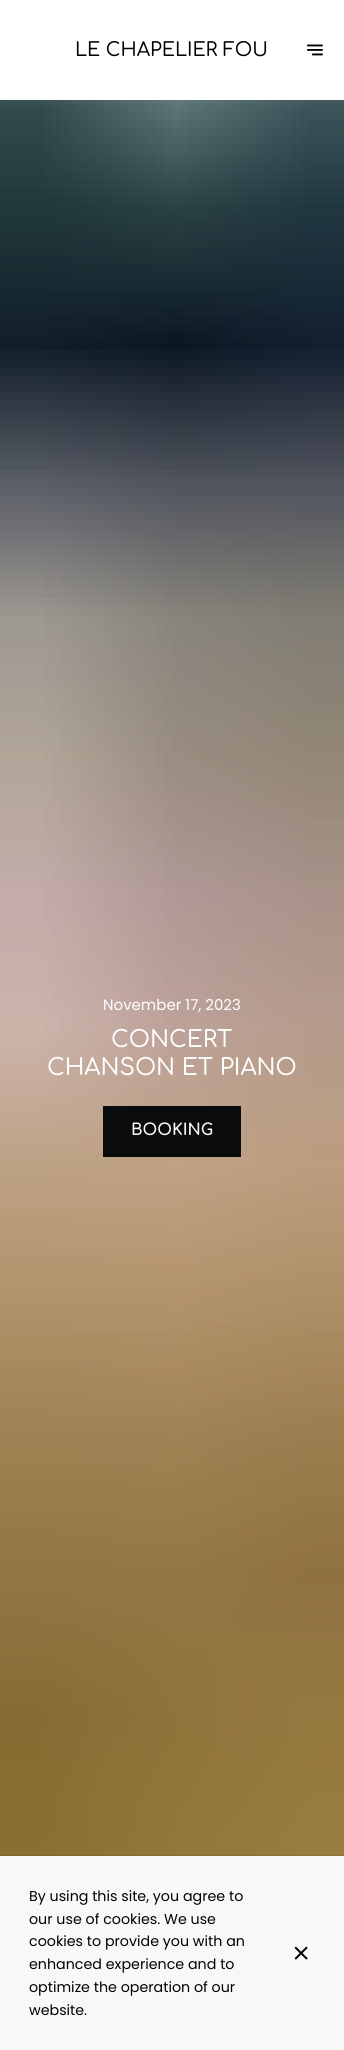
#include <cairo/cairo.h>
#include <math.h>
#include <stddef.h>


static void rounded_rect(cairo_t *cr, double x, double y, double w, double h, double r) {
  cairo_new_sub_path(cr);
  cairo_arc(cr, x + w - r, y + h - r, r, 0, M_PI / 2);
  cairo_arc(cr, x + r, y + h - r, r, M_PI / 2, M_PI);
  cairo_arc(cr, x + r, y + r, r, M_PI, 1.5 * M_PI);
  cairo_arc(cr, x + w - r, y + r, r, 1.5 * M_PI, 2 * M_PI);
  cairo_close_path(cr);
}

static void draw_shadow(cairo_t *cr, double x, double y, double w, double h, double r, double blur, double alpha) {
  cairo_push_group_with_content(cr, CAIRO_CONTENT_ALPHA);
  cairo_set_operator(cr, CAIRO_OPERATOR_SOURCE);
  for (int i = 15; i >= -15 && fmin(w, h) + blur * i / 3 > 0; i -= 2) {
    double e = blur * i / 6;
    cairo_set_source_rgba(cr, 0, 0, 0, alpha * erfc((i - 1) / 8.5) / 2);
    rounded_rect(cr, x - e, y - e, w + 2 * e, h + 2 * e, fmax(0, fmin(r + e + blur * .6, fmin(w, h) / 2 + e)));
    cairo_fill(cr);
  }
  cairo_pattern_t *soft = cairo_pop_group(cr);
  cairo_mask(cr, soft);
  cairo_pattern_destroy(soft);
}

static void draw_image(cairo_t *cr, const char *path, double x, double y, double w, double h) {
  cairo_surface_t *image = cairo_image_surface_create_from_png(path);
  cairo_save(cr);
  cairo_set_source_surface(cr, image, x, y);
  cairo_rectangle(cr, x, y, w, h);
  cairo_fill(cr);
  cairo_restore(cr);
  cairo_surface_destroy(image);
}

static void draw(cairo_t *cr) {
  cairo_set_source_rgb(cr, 1, 1, 1);
  cairo_paint(cr);
  draw_image(cr, "images/2.png", 0, 100, 344, 1756);
  cairo_set_source_rgb(cr, 127 / 255.0, 127 / 255.0, 127 / 255.0);
  draw_shadow(cr, 2, 2, 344, 100, 0, 5, 0.15);
  cairo_set_source_rgb(cr, 1, 1, 1);
  cairo_rectangle(cr, 0, 0, 344, 100);
  cairo_fill(cr);
  draw_image(cr, "images/1.png", 307, 44, 16, 12);
  cairo_set_source_rgb(cr, 9 / 255.0, 11 / 255.0, 13 / 255.0);
  cairo_rectangle(cr, 103, 1106, 138, 51);
  cairo_fill(cr);
  cairo_rectangle(cr, -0.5, 1855.5, 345, 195);
  cairo_set_source_rgba(cr, 1 / 255.0, 1 / 255.0, 1 / 255.0, 0.08);
  cairo_set_line_width(cr, 1);
  cairo_stroke(cr);
  cairo_set_source_rgb(cr, 248 / 255.0, 248 / 255.0, 248 / 255.0);
  cairo_rectangle(cr, 0, 1856, 344, 194);
  cairo_fill(cr);
  draw_image(cr, "images/3.png", 294, 1946, 14, 14);
  cairo_select_font_face(cr, "Comfortaa Medium", CAIRO_FONT_SLANT_NORMAL, CAIRO_FONT_WEIGHT_NORMAL);
  cairo_set_font_size(cr, 19);
  cairo_set_source_rgb(cr, 1 / 255.0, 1 / 255.0, 1 / 255.0);
  cairo_move_to(cr, 75, 56);
  cairo_show_text(cr, "LE CHAPELIER FOU");
  cairo_select_font_face(cr, "Poppins", CAIRO_FONT_SLANT_NORMAL, CAIRO_FONT_WEIGHT_NORMAL);
  cairo_set_font_size(cr, 15);
  cairo_set_source_rgb(cr, 1, 1, 1);
  cairo_move_to(cr, 103, 1010);
  cairo_show_text(cr, "November 17, 2023");
  cairo_select_font_face(cr, "Comfortaa Medium", CAIRO_FONT_SLANT_NORMAL, CAIRO_FONT_WEIGHT_NORMAL);
  cairo_set_font_size(cr, 23);
  cairo_move_to(cr, 111, 1047);
  cairo_show_text(cr, "CONCERT");
  cairo_move_to(cr, 47, 1075);
  cairo_show_text(cr, "CHANSON ET PIANO");
  cairo_select_font_face(cr, "Comfortaa", CAIRO_FONT_SLANT_NORMAL, CAIRO_FONT_WEIGHT_BOLD);
  cairo_set_font_size(cr, 16);
  cairo_set_source_rgb(cr, 248 / 255.0, 248 / 255.0, 248 / 255.0);
  cairo_move_to(cr, 131, 1135);
  cairo_show_text(cr, "BOOKING");
  cairo_select_font_face(cr, "Poppins", CAIRO_FONT_SLANT_NORMAL, CAIRO_FONT_WEIGHT_NORMAL);
  cairo_set_font_size(cr, 14.25);
  cairo_set_source_rgb(cr, 1 / 255.0, 1 / 255.0, 1 / 255.0);
  cairo_move_to(cr, 29, 1901);
  cairo_show_text(cr, "By using this site, you agree to");
  cairo_move_to(cr, 29, 1924);
  cairo_show_text(cr, "our use of cookies. We use");
  cairo_move_to(cr, 29, 1946);
  cairo_show_text(cr, "cookies to provide you with an");
  cairo_move_to(cr, 29, 1969);
  cairo_show_text(cr, "enhanced experience and to");
  cairo_move_to(cr, 29, 1992);
  cairo_show_text(cr, "optimize the operation of our");
  cairo_move_to(cr, 29, 2015);
  cairo_show_text(cr, "website.");
}

int main(void) {
  cairo_surface_t *surface = cairo_image_surface_create(CAIRO_FORMAT_RGB24, 344, 2050);
  cairo_t *cr = cairo_create(surface);
  cairo_font_options_t *options = cairo_font_options_create();
  cairo_font_options_set_hint_metrics(options, CAIRO_HINT_METRICS_OFF);
  cairo_font_options_set_hint_style(options, CAIRO_HINT_STYLE_NONE);
  cairo_set_font_options(cr, options);
  cairo_set_miter_limit(cr, 4);
  draw(cr);
  cairo_surface_write_to_png(surface, "out.png");
  cairo_font_options_destroy(options);
  cairo_destroy(cr);
  cairo_surface_destroy(surface);
  return 0;
}
